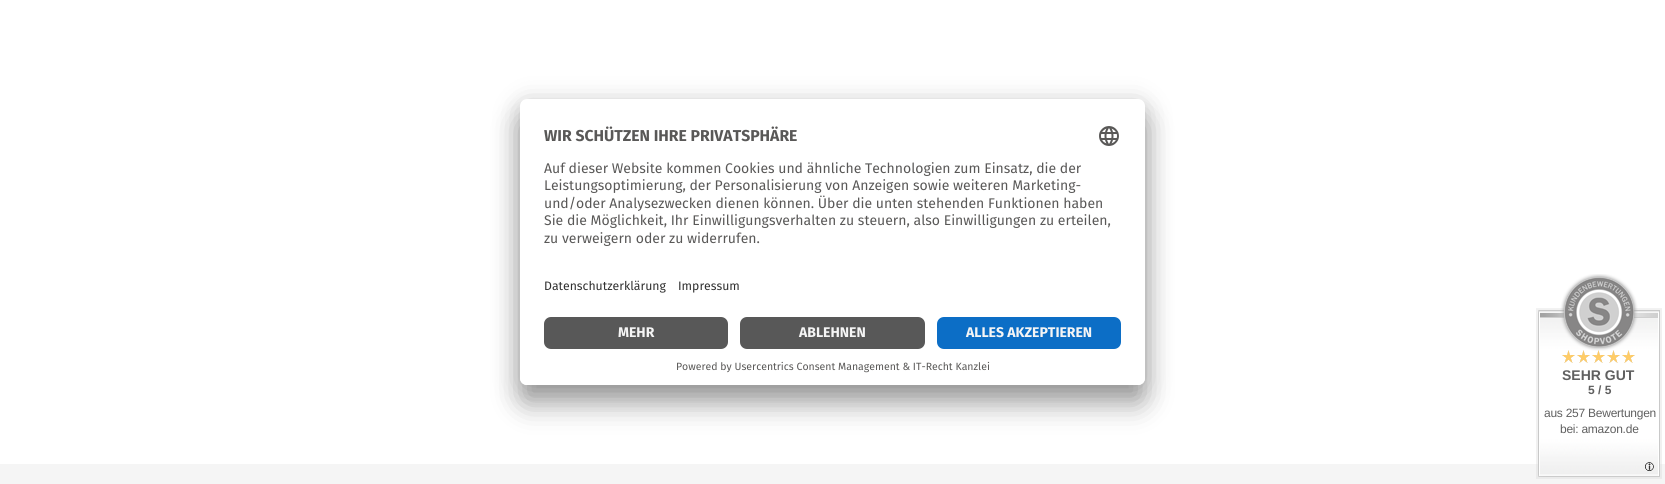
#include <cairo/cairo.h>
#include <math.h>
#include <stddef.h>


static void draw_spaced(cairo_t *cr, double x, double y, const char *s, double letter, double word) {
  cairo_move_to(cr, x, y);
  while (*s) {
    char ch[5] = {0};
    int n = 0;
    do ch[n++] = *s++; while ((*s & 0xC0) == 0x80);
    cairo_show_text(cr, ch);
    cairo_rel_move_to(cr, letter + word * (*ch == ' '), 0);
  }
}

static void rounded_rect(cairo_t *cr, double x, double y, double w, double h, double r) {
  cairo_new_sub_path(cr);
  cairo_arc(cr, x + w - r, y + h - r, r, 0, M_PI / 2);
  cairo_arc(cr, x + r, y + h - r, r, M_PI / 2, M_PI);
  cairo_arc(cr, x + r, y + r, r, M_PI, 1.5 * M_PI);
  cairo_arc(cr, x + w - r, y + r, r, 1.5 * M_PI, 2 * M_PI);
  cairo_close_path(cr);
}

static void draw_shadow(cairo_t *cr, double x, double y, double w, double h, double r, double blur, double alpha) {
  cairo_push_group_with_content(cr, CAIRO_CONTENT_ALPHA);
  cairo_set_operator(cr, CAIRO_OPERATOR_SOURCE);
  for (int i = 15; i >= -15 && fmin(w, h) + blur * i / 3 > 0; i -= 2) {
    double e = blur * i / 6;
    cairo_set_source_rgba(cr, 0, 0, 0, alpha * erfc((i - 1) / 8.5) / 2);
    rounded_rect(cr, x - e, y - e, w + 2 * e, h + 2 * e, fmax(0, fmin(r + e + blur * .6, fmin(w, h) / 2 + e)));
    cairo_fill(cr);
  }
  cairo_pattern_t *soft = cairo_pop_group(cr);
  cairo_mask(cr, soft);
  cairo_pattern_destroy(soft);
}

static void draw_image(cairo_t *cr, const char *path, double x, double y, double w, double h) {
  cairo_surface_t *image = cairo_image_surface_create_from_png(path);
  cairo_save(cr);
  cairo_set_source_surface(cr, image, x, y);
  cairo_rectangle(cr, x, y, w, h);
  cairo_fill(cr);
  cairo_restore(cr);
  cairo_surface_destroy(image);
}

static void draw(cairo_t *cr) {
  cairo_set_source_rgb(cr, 1, 1, 1);
  cairo_paint(cr);
  cairo_set_source_rgb(cr, 0, 0, 0);
  draw_shadow(cr, 520, 119, 625, 286, 7, 14, 0.3);
  draw_shadow(cr, 520, 104, 625, 286, 7, 13, 0.22);
  cairo_set_source_rgb(cr, 1, 1, 1);
  rounded_rect(cr, 520, 99, 625, 286, 7);
  cairo_fill(cr);
  draw_image(cr, "images/1.png", 1099, 126, 20, 20);
  cairo_new_path(cr);
  cairo_move_to(cr, 520, 309);
  cairo_line_to(cr, 1145, 309);
  cairo_line_to(cr, 1145, 378);
  cairo_curve_to(cr, 1145, 382, 1142, 385, 1138, 385);
  cairo_line_to(cr, 527, 385);
  cairo_curve_to(cr, 523, 385, 520, 382, 520, 378);
  cairo_close_path(cr);
  cairo_fill(cr);
  cairo_set_source_rgb(cr, 88 / 255.0, 88 / 255.0, 88 / 255.0);
  rounded_rect(cr, 544, 317, 184, 32, 7);
  cairo_fill(cr);
  rounded_rect(cr, 740, 317, 185, 32, 7);
  cairo_fill(cr);
  cairo_set_source_rgb(cr, 12 / 255.0, 110 / 255.0, 198 / 255.0);
  rounded_rect(cr, 937, 317, 184, 32, 7);
  cairo_fill(cr);
  cairo_set_source_rgb(cr, 245 / 255.0, 245 / 255.0, 245 / 255.0);
  cairo_rectangle(cr, 0, 464, 1665, 20);
  cairo_fill(cr);
  draw_image(cr, "images/2.png", 1536, 274, 126, 205);
  draw_image(cr, "images/3.png", 1562, 350, 73, 13);
  cairo_select_font_face(cr, "Fira Sans", CAIRO_FONT_SLANT_NORMAL, CAIRO_FONT_WEIGHT_BOLD);
  cairo_set_font_size(cr, 15.75);
  cairo_set_source_rgb(cr, 89 / 255.0, 88 / 255.0, 87 / 255.0);
  cairo_move_to(cr, 544, 141);
  cairo_show_text(cr, "WIR SCHÜTZEN IHRE PRIVATSPHÄRE");
  cairo_select_font_face(cr, "Fira Sans", CAIRO_FONT_SLANT_NORMAL, CAIRO_FONT_WEIGHT_NORMAL);
  cairo_set_font_size(cr, 14);
  cairo_move_to(cr, 544, 173);
  cairo_show_text(cr, "Auf dieser Website kommen Cookies und ähnliche Technologien zum Einsatz, die der");
  cairo_move_to(cr, 544, 190);
  cairo_show_text(cr, "Leistungsoptimierung, der Personalisierung von Anzeigen sowie weiteren Marketing-");
  cairo_move_to(cr, 544, 208);
  cairo_show_text(cr, "und/oder Analysezwecken dienen können. Über die unten stehenden Funktionen haben");
  cairo_move_to(cr, 544, 225);
  cairo_show_text(cr, "Sie die Möglichkeit, Ihr Einwilligungsverhalten zu steuern, also Einwilligungen zu erteilen,");
  cairo_move_to(cr, 544, 243);
  cairo_show_text(cr, "zu verweigern oder zu widerrufen.");
  cairo_set_font_size(cr, 12.25);
  cairo_set_source_rgb(cr, 48 / 255.0, 48 / 255.0, 48 / 255.0);
  cairo_move_to(cr, 544, 290);
  cairo_show_text(cr, "Datenschutzerklärung");
  cairo_move_to(cr, 678, 290);
  cairo_show_text(cr, "Impressum");
  cairo_select_font_face(cr, "Fira Sans", CAIRO_FONT_SLANT_NORMAL, CAIRO_FONT_WEIGHT_BOLD);
  cairo_set_font_size(cr, 14);
  cairo_set_source_rgb(cr, 245 / 255.0, 245 / 255.0, 245 / 255.0);
  cairo_move_to(cr, 618, 337);
  cairo_show_text(cr, "MEHR");
  cairo_move_to(cr, 799, 337);
  cairo_show_text(cr, "ABLEHNEN");
  cairo_move_to(cr, 966, 337);
  cairo_show_text(cr, "ALLES AKZEPTIEREN");
  cairo_select_font_face(cr, "Fira Sans", CAIRO_FONT_SLANT_NORMAL, CAIRO_FONT_WEIGHT_NORMAL);
  cairo_set_font_size(cr, 10.5);
  cairo_set_source_rgb(cr, 89 / 255.0, 88 / 255.0, 87 / 255.0);
  cairo_move_to(cr, 676, 370);
  cairo_show_text(cr, "Powered by Usercentrics Consent Management & IT-Recht Kanzlei");
  cairo_select_font_face(cr, "Liberation Sans", CAIRO_FONT_SLANT_NORMAL, CAIRO_FONT_WEIGHT_BOLD);
  cairo_set_font_size(cr, 14);
  cairo_set_source_rgb(cr, 96 / 255.0, 96 / 255.0, 96 / 255.0);
  cairo_move_to(cr, 1562, 380);
  cairo_show_text(cr, "SEHR GUT");
  cairo_set_font_size(cr, 12);
  cairo_move_to(cr, 1588, 394);
  cairo_show_text(cr, "5 / 5");
  cairo_select_font_face(cr, "Liberation Sans", CAIRO_FONT_SLANT_NORMAL, CAIRO_FONT_WEIGHT_NORMAL);
  draw_spaced(cr, 1544, 417, "aus 257 Bewertungen", -0.25, 0);
  draw_spaced(cr, 1560, 433, "bei: amazon.de", -0.25, 0);
}

int main(void) {
  cairo_surface_t *surface = cairo_image_surface_create(CAIRO_FORMAT_RGB24, 1665, 484);
  cairo_t *cr = cairo_create(surface);
  cairo_font_options_t *options = cairo_font_options_create();
  cairo_font_options_set_hint_metrics(options, CAIRO_HINT_METRICS_OFF);
  cairo_font_options_set_hint_style(options, CAIRO_HINT_STYLE_NONE);
  cairo_set_font_options(cr, options);
  cairo_set_miter_limit(cr, 4);
  draw(cr);
  cairo_surface_write_to_png(surface, "out.png");
  cairo_font_options_destroy(options);
  cairo_destroy(cr);
  cairo_surface_destroy(surface);
  return 0;
}
